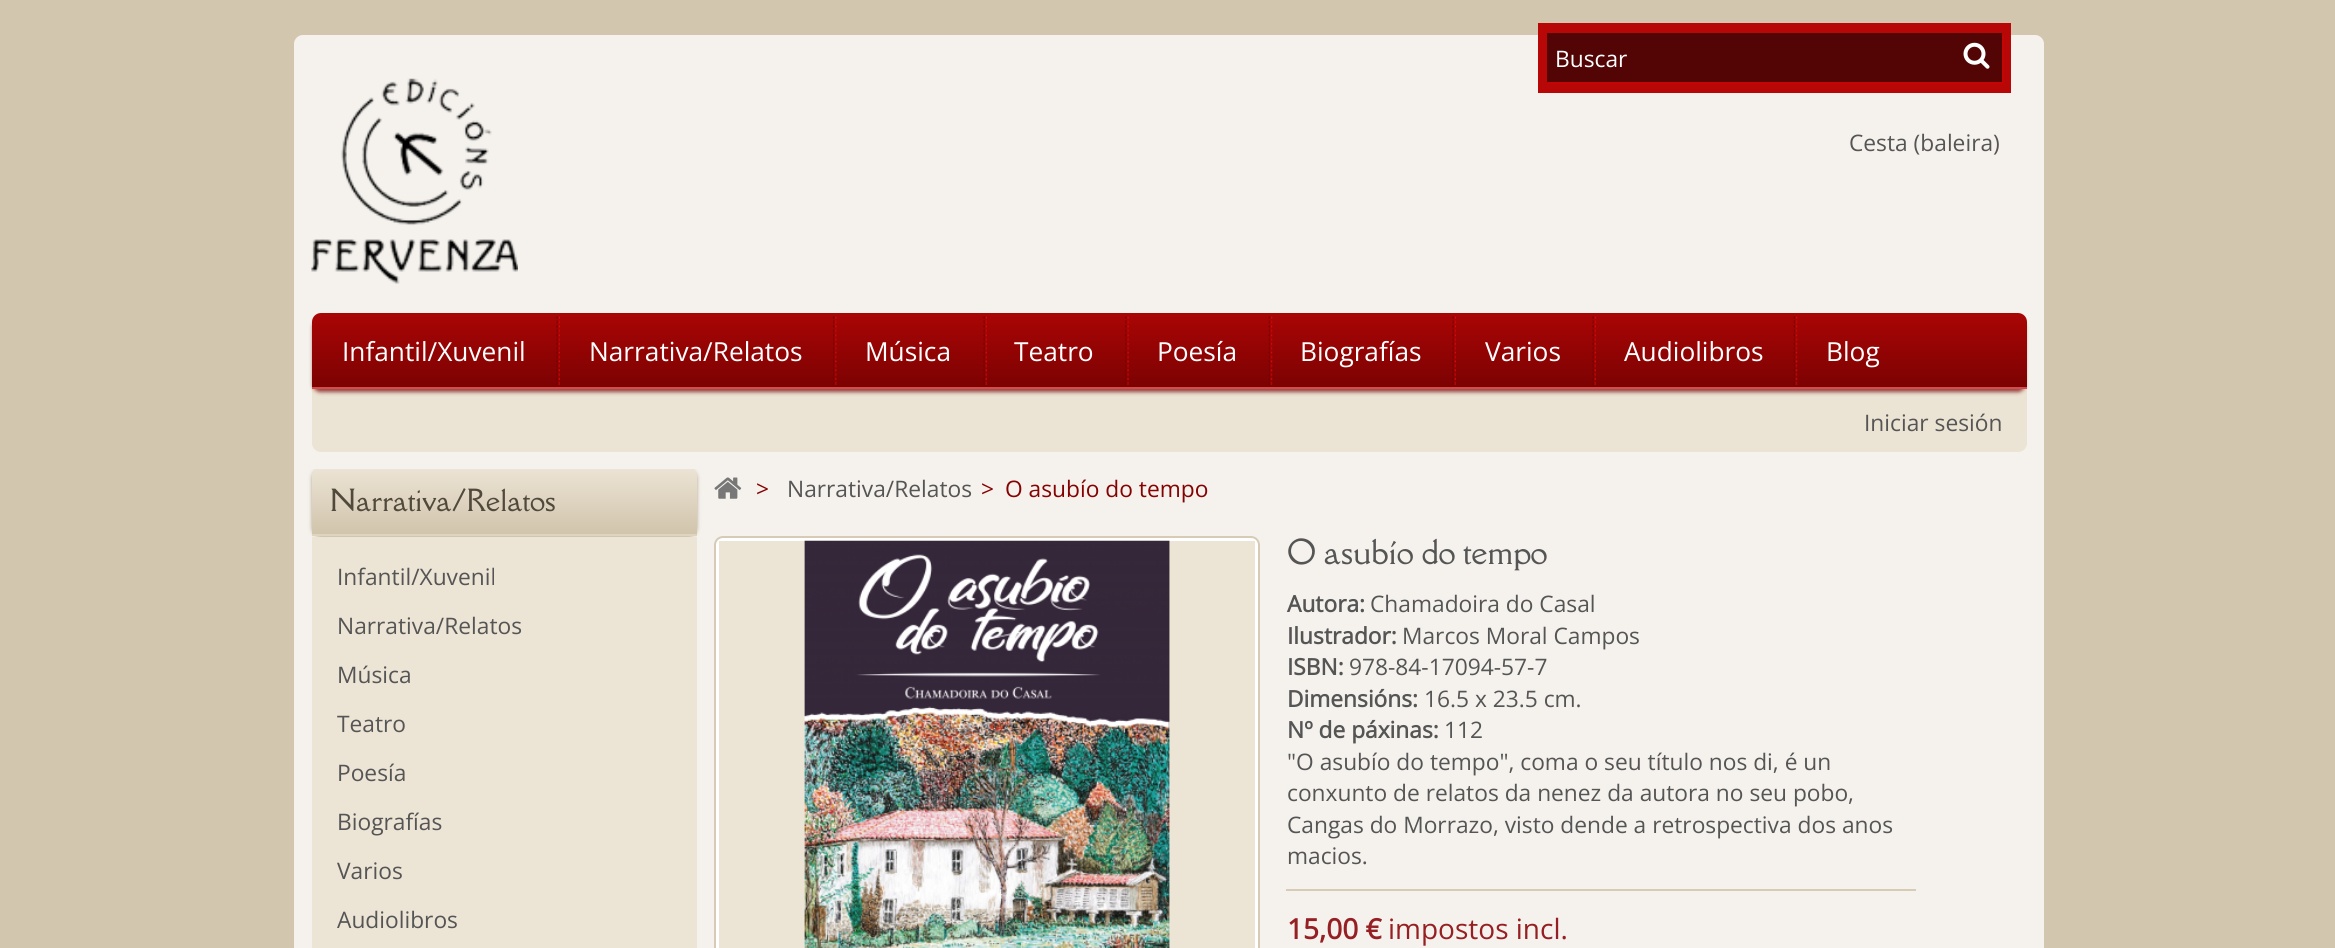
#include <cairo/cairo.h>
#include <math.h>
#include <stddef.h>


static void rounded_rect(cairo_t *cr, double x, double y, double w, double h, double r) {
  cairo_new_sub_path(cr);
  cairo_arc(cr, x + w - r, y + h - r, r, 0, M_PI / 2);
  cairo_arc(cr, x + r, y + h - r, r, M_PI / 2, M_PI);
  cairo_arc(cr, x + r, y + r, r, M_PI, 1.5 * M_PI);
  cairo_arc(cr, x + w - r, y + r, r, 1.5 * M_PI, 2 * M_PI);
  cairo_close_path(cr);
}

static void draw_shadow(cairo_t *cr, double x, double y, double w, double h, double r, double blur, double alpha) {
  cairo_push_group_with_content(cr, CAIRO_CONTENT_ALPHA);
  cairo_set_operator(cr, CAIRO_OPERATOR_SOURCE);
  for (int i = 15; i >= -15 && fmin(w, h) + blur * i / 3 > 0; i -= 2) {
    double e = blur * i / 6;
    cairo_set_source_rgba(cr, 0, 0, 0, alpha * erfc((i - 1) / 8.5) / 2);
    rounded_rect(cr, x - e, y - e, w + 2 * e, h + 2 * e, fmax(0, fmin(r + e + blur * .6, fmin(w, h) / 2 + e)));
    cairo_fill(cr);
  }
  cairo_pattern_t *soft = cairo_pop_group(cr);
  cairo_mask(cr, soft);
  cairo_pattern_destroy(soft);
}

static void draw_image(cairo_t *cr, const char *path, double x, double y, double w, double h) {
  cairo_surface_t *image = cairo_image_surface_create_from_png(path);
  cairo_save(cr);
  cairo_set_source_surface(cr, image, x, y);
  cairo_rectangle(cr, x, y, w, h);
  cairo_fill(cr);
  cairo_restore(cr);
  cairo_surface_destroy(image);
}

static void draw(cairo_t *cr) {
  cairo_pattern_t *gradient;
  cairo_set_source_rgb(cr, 211 / 255.0, 198 / 255.0, 174 / 255.0);
  cairo_paint(cr);
  cairo_set_source_rgb(cr, 245 / 255.0, 242 / 255.0, 237 / 255.0);
  cairo_rectangle(cr, 294, 469, 1750, 479);
  cairo_fill(cr);
  cairo_set_source_rgb(cr, 179 / 255.0, 166 / 255.0, 140 / 255.0);
  draw_shadow(cr, 312, 469, 385, 68, 9, 2, 1);
  gradient = cairo_pattern_create_linear(504, 467, 504, 534);
  cairo_pattern_add_color_stop_rgba(gradient, 0, 236 / 255.0, 228 / 255.0, 213 / 255.0, 1);
  cairo_pattern_add_color_stop_rgba(gradient, 1, 209 / 255.0, 196 / 255.0, 172 / 255.0, 1);
  cairo_set_source(cr, gradient);
  cairo_pattern_destroy(gradient);
  cairo_new_path(cr);
  cairo_move_to(cr, 321, 467);
  cairo_line_to(cr, 688, 467);
  cairo_curve_to(cr, 693, 467, 697, 471, 697, 476);
  cairo_line_to(cr, 697, 534);
  cairo_line_to(cr, 312, 534);
  cairo_line_to(cr, 312, 476);
  cairo_curve_to(cr, 312, 471, 316, 467, 321, 467);
  cairo_close_path(cr);
  cairo_fill(cr);
  cairo_set_source_rgb(cr, 245 / 255.0, 242 / 255.0, 237 / 255.0);
  cairo_new_path(cr);
  cairo_move_to(cr, 303, 35);
  cairo_line_to(cr, 2035, 35);
  cairo_curve_to(cr, 2040, 35, 2044, 39, 2044, 44);
  cairo_line_to(cr, 2044, 469);
  cairo_line_to(cr, 294, 469);
  cairo_line_to(cr, 294, 44);
  cairo_curve_to(cr, 294, 39, 298, 35, 303, 35);
  cairo_close_path(cr);
  cairo_fill(cr);
  cairo_set_source_rgb(cr, 183 / 255.0, 7 / 255.0, 7 / 255.0);
  cairo_rectangle(cr, 1538, 23, 473, 70);
  cairo_fill(cr);
  cairo_set_source_rgb(cr, 206 / 255.0, 2 / 255.0, 2 / 255.0);
  draw_shadow(cr, 1549, 35, 455, 49, 0, 1, 0.66);
  cairo_set_source_rgb(cr, 83 / 255.0, 4 / 255.0, 4 / 255.0);
  cairo_rectangle(cr, 1547, 33, 455, 49);
  cairo_fill(cr);
  draw_image(cr, "images/1.png", 1963, 42, 27, 27);
  draw_image(cr, "images/2.png", 311, 78, 207, 206);
  cairo_set_source_rgb(cr, 235 / 255.0, 227 / 255.0, 211 / 255.0);
  cairo_new_path(cr);
  cairo_move_to(cr, 312, 389);
  cairo_line_to(cr, 2027, 389);
  cairo_line_to(cr, 2027, 443);
  cairo_curve_to(cr, 2027, 448, 2023, 452, 2018, 452);
  cairo_line_to(cr, 321, 452);
  cairo_curve_to(cr, 316, 452, 312, 448, 312, 443);
  cairo_close_path(cr);
  cairo_fill(cr);
  cairo_set_source_rgb(cr, 149 / 255.0, 61 / 255.0, 61 / 255.0);
  draw_shadow(cr, 313, 320, 1712, 72, 7, 2, 1);
  gradient = cairo_pattern_create_linear(1169, 313, 1169, 387);
  cairo_pattern_add_color_stop_rgba(gradient, 0, 170 / 255.0, 5 / 255.0, 5 / 255.0, 1);
  cairo_pattern_add_color_stop_rgba(gradient, 1, 124 / 255.0, 2 / 255.0, 2 / 255.0, 1);
  cairo_set_source(cr, gradient);
  cairo_pattern_destroy(gradient);
  cairo_new_path(cr);
  cairo_move_to(cr, 321, 313);
  cairo_line_to(cr, 2018, 313);
  cairo_curve_to(cr, 2023, 313, 2027, 317, 2027, 322);
  cairo_line_to(cr, 2027, 387);
  cairo_line_to(cr, 312, 387);
  cairo_line_to(cr, 312, 322);
  cairo_curve_to(cr, 312, 317, 316, 313, 321, 313);
  cairo_close_path(cr);
  cairo_fill(cr);
  cairo_set_source_rgb(cr, 212 / 255.0, 76 / 255.0, 76 / 255.0);
  cairo_rectangle(cr, 312, 387, 1715, 2);
  cairo_fill(cr);
  draw_image(cr, "images/3.png", 556, 316, 4, 69);
  draw_image(cr, "images/4.png", 833, 316, 4, 69);
  draw_image(cr, "images/3.png", 983, 316, 4, 69);
  draw_image(cr, "images/5.png", 1125, 316, 4, 69);
  draw_image(cr, "images/6.png", 1268, 316, 5, 69);
  draw_image(cr, "images/3.png", 1452, 316, 4, 69);
  draw_image(cr, "images/3.png", 1592, 316, 4, 69);
  draw_image(cr, "images/6.png", 1793, 316, 5, 69);
  cairo_set_source_rgb(cr, 225 / 255.0, 212 / 255.0, 190 / 255.0);
  cairo_rectangle(cr, 312, 534, 385, 2);
  cairo_fill(cr);
  cairo_set_source_rgb(cr, 236 / 255.0, 228 / 255.0, 213 / 255.0);
  cairo_rectangle(cr, 312, 537, 385, 411);
  cairo_fill(cr);
  draw_image(cr, "images/7.png", 714, 477, 28, 22);
  cairo_set_source_rgb(cr, 1, 1, 1);
  rounded_rect(cr, 715, 537, 544, 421, 8);
  cairo_fill_preserve(cr);
  cairo_set_source_rgb(cr, 215 / 255.0, 203 / 255.0, 181 / 255.0);
  cairo_stroke(cr);
  cairo_set_source_rgb(cr, 236 / 255.0, 228 / 255.0, 213 / 255.0);
  cairo_rectangle(cr, 719, 541, 536, 407);
  cairo_fill(cr);
  draw_image(cr, "images/8.png", 804, 540, 366, 408);
  cairo_set_source_rgb(cr, 215 / 255.0, 203 / 255.0, 181 / 255.0);
  cairo_rectangle(cr, 1286, 889, 630, 2);
  cairo_fill(cr);
  cairo_select_font_face(cr, "Open Sans", CAIRO_FONT_SLANT_NORMAL, CAIRO_FONT_WEIGHT_NORMAL);
  cairo_set_font_size(cr, 22.75);
  cairo_set_source_rgb(cr, 1, 1, 1);
  cairo_move_to(cr, 1555, 67);
  cairo_show_text(cr, "Buscar");
  cairo_set_source_rgb(cr, 85 / 255.0, 85 / 255.0, 85 / 255.0);
  cairo_move_to(cr, 1849, 151);
  cairo_show_text(cr, "Cesta (baleira)");
  cairo_set_font_size(cr, 26.25);
  cairo_set_source_rgb(cr, 1, 1, 1);
  cairo_move_to(cr, 342, 361);
  cairo_show_text(cr, "Infantil/Xuvenil");
  cairo_move_to(cr, 589, 361);
  cairo_show_text(cr, "Narrativa/Relatos");
  cairo_move_to(cr, 865, 361);
  cairo_show_text(cr, "Música");
  cairo_move_to(cr, 1014, 361);
  cairo_show_text(cr, "Teatro");
  cairo_move_to(cr, 1157, 361);
  cairo_show_text(cr, "Poesía");
  cairo_move_to(cr, 1300, 361);
  cairo_show_text(cr, "Biografías");
  cairo_move_to(cr, 1485, 361);
  cairo_show_text(cr, "Varios");
  cairo_move_to(cr, 1624, 361);
  cairo_show_text(cr, "Audiolibros");
  cairo_move_to(cr, 1826, 361);
  cairo_show_text(cr, "Blog");
  cairo_set_font_size(cr, 22.75);
  cairo_set_source_rgb(cr, 85 / 255.0, 85 / 255.0, 85 / 255.0);
  cairo_move_to(cr, 1864, 431);
  cairo_show_text(cr, "Iniciar sesión");
  cairo_select_font_face(cr, "Della Respira", CAIRO_FONT_SLANT_NORMAL, CAIRO_FONT_WEIGHT_NORMAL);
  cairo_set_font_size(cr, 28);
  cairo_set_source_rgb(cr, 80 / 255.0, 73 / 255.0, 60 / 255.0);
  cairo_move_to(cr, 330, 511);
  cairo_show_text(cr, "Narrativa/Relatos");
  cairo_select_font_face(cr, "Open Sans", CAIRO_FONT_SLANT_NORMAL, CAIRO_FONT_WEIGHT_NORMAL);
  cairo_set_font_size(cr, 22.75);
  cairo_set_source_rgb(cr, 85 / 255.0, 85 / 255.0, 85 / 255.0);
  cairo_move_to(cr, 337, 585);
  cairo_show_text(cr, "Infantil/Xuvenil");
  cairo_move_to(cr, 337, 634);
  cairo_show_text(cr, "Narrativa/Relatos");
  cairo_move_to(cr, 337, 683);
  cairo_show_text(cr, "Música");
  cairo_move_to(cr, 337, 732);
  cairo_show_text(cr, "Teatro");
  cairo_move_to(cr, 337, 781);
  cairo_show_text(cr, "Poesía");
  cairo_move_to(cr, 337, 830);
  cairo_show_text(cr, "Biografías");
  cairo_move_to(cr, 337, 879);
  cairo_show_text(cr, "Varios");
  cairo_move_to(cr, 337, 928);
  cairo_show_text(cr, "Audiolibros");
  cairo_set_source_rgb(cr, 132 / 255.0, 2 / 255.0, 2 / 255.0);
  cairo_move_to(cr, 756, 497);
  cairo_show_text(cr, ">");
  cairo_set_source_rgb(cr, 85 / 255.0, 85 / 255.0, 85 / 255.0);
  cairo_move_to(cr, 787, 497);
  cairo_show_text(cr, "Narrativa/Relatos");
  cairo_set_source_rgb(cr, 132 / 255.0, 2 / 255.0, 2 / 255.0);
  cairo_move_to(cr, 981, 497);
  cairo_show_text(cr, ">");
  cairo_move_to(cr, 1005, 497);
  cairo_show_text(cr, "O asubío do tempo");
  cairo_select_font_face(cr, "Della Respira", CAIRO_FONT_SLANT_NORMAL, CAIRO_FONT_WEIGHT_NORMAL);
  cairo_set_font_size(cr, 31.5);
  cairo_set_source_rgb(cr, 85 / 255.0, 85 / 255.0, 85 / 255.0);
  cairo_move_to(cr, 1287, 564);
  cairo_show_text(cr, "O asubío do tempo");
  cairo_select_font_face(cr, "Open Sans", CAIRO_FONT_SLANT_NORMAL, CAIRO_FONT_WEIGHT_BOLD);
  cairo_set_font_size(cr, 22.75);
  cairo_move_to(cr, 1287, 612);
  cairo_show_text(cr, "Autora:");
  cairo_select_font_face(cr, "Open Sans", CAIRO_FONT_SLANT_NORMAL, CAIRO_FONT_WEIGHT_NORMAL);
  cairo_move_to(cr, 1370, 612);
  cairo_show_text(cr, "Chamadoira do Casal");
  cairo_select_font_face(cr, "Open Sans", CAIRO_FONT_SLANT_NORMAL, CAIRO_FONT_WEIGHT_BOLD);
  cairo_move_to(cr, 1287, 644);
  cairo_show_text(cr, "Ilustrador:");
  cairo_select_font_face(cr, "Open Sans", CAIRO_FONT_SLANT_NORMAL, CAIRO_FONT_WEIGHT_NORMAL);
  cairo_move_to(cr, 1402, 644);
  cairo_show_text(cr, "Marcos Moral Campos");
  cairo_select_font_face(cr, "Open Sans", CAIRO_FONT_SLANT_NORMAL, CAIRO_FONT_WEIGHT_BOLD);
  cairo_move_to(cr, 1287, 675);
  cairo_show_text(cr, "ISBN:");
  cairo_select_font_face(cr, "Open Sans", CAIRO_FONT_SLANT_NORMAL, CAIRO_FONT_WEIGHT_NORMAL);
  cairo_move_to(cr, 1349, 675);
  cairo_show_text(cr, "978-84-17094-57-7");
  cairo_select_font_face(cr, "Open Sans", CAIRO_FONT_SLANT_NORMAL, CAIRO_FONT_WEIGHT_BOLD);
  cairo_move_to(cr, 1287, 707);
  cairo_show_text(cr, "Dimensións:");
  cairo_select_font_face(cr, "Open Sans", CAIRO_FONT_SLANT_NORMAL, CAIRO_FONT_WEIGHT_NORMAL);
  cairo_move_to(cr, 1424, 707);
  cairo_show_text(cr, "16.5 x 23.5 cm.");
  cairo_select_font_face(cr, "Open Sans", CAIRO_FONT_SLANT_NORMAL, CAIRO_FONT_WEIGHT_BOLD);
  cairo_move_to(cr, 1287, 738);
  cairo_show_text(cr, "Nº de páxinas:");
  cairo_select_font_face(cr, "Open Sans", CAIRO_FONT_SLANT_NORMAL, CAIRO_FONT_WEIGHT_NORMAL);
  cairo_move_to(cr, 1444, 738);
  cairo_show_text(cr, "112");
  cairo_move_to(cr, 1287, 770);
  cairo_show_text(cr, "\"O asubío do tempo\", coma o seu título nos di, é un");
  cairo_move_to(cr, 1287, 801);
  cairo_show_text(cr, "conxunto de relatos da nenez da autora no seu pobo,");
  cairo_move_to(cr, 1287, 833);
  cairo_show_text(cr, "Cangas do Morrazo, visto dende a retrospectiva dos anos");
  cairo_move_to(cr, 1287, 864);
  cairo_show_text(cr, "macios.");
  cairo_select_font_face(cr, "Open Sans", CAIRO_FONT_SLANT_NORMAL, CAIRO_FONT_WEIGHT_BOLD);
  cairo_set_font_size(cr, 28);
  cairo_set_source_rgb(cr, 150 / 255.0, 31 / 255.0, 35 / 255.0);
  cairo_move_to(cr, 1287, 939);
  cairo_show_text(cr, "15,00 €");
  cairo_select_font_face(cr, "Open Sans", CAIRO_FONT_SLANT_NORMAL, CAIRO_FONT_WEIGHT_NORMAL);
  cairo_move_to(cr, 1388, 939);
  cairo_show_text(cr, "impostos incl.");
}

int main(void) {
  cairo_surface_t *surface = cairo_image_surface_create(CAIRO_FORMAT_RGB24, 2335, 948);
  cairo_t *cr = cairo_create(surface);
  cairo_font_options_t *options = cairo_font_options_create();
  cairo_font_options_set_hint_metrics(options, CAIRO_HINT_METRICS_OFF);
  cairo_font_options_set_hint_style(options, CAIRO_HINT_STYLE_NONE);
  cairo_set_font_options(cr, options);
  cairo_set_miter_limit(cr, 4);
  draw(cr);
  cairo_surface_write_to_png(surface, "out.png");
  cairo_font_options_destroy(options);
  cairo_destroy(cr);
  cairo_surface_destroy(surface);
  return 0;
}
